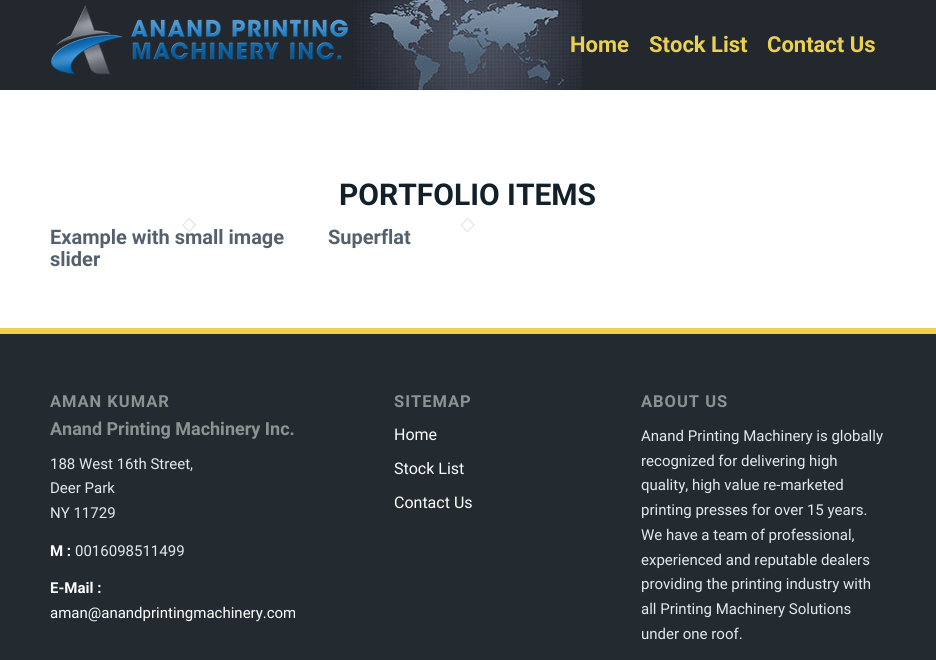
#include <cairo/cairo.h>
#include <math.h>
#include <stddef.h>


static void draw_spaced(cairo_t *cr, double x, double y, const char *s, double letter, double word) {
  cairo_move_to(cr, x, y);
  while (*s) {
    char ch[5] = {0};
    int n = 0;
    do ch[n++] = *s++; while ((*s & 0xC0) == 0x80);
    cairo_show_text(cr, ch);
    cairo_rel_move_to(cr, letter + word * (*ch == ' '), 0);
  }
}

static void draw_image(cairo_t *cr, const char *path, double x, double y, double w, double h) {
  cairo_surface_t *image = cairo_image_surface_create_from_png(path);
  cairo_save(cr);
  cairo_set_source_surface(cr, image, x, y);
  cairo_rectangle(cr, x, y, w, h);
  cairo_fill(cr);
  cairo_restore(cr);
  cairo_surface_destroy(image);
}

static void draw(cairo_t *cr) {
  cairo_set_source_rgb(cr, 1, 1, 1);
  cairo_paint(cr);
  draw_image(cr, "images/1.png", 0, 0, 936, 90);
  draw_image(cr, "images/2.png", 51, 5, 298, 70);
  cairo_new_path(cr);
  cairo_move_to(cr, 467.5, 218.5);
  cairo_line_to(cr, 474, 225);
  cairo_line_to(cr, 467.5, 231.5);
  cairo_line_to(cr, 461, 225);
  cairo_close_path(cr);
  cairo_set_source_rgb(cr, 225 / 255.0, 225 / 255.0, 225 / 255.0);
  cairo_set_line_width(cr, 1);
  cairo_stroke(cr);
  cairo_set_source_rgb(cr, 35 / 255.0, 43 / 255.0, 48 / 255.0);
  cairo_rectangle(cr, 0, 334, 936, 326);
  cairo_fill(cr);
  cairo_set_source_rgb(cr, 235 / 255.0, 209 / 255.0, 80 / 255.0);
  cairo_rectangle(cr, 0, 328, 936, 6);
  cairo_fill(cr);
  cairo_select_font_face(cr, "Roboto", CAIRO_FONT_SLANT_NORMAL, CAIRO_FONT_WEIGHT_BOLD);
  cairo_set_font_size(cr, 22);
  cairo_move_to(cr, 570, 52);
  cairo_show_text(cr, "Home");
  cairo_move_to(cr, 649, 52);
  cairo_show_text(cr, "Stock List");
  cairo_move_to(cr, 767, 52);
  cairo_show_text(cr, "Contact Us");
  cairo_set_font_size(cr, 30);
  cairo_set_source_rgb(cr, 17 / 255.0, 32 / 255.0, 42 / 255.0);
  cairo_move_to(cr, 339, 205);
  cairo_show_text(cr, "PORTFOLIO ITEMS");
  cairo_set_font_size(cr, 20);
  cairo_set_source_rgb(cr, 85 / 255.0, 96 / 255.0, 110 / 255.0);
  cairo_move_to(cr, 50, 244);
  cairo_show_text(cr, "Example with small image");
  cairo_new_path(cr);
  cairo_move_to(cr, 189, 218.5);
  cairo_line_to(cr, 195.5, 225);
  cairo_line_to(cr, 189, 231.5);
  cairo_line_to(cr, 183, 225);
  cairo_close_path(cr);
  cairo_set_source_rgb(cr, 225 / 255.0, 225 / 255.0, 225 / 255.0);
  cairo_stroke(cr);
  cairo_set_source_rgb(cr, 85 / 255.0, 96 / 255.0, 110 / 255.0);
  cairo_move_to(cr, 50, 266);
  cairo_show_text(cr, "slider");
  cairo_move_to(cr, 328, 244);
  cairo_show_text(cr, "Superflat");
  cairo_set_font_size(cr, 16.5);
  cairo_set_source_rgb(cr, 142 / 255.0, 147 / 255.0, 146 / 255.0);
  draw_spaced(cr, 50, 407, "AMAN KUMAR", 1, 0);
  cairo_set_font_size(cr, 18);
  cairo_move_to(cr, 50, 435);
  cairo_show_text(cr, "Anand Printing Machinery Inc.");
  cairo_select_font_face(cr, "Roboto", CAIRO_FONT_SLANT_NORMAL, CAIRO_FONT_WEIGHT_NORMAL);
  cairo_set_font_size(cr, 15);
  cairo_set_source_rgb(cr, 228 / 255.0, 230 / 255.0, 240 / 255.0);
  cairo_move_to(cr, 50, 469);
  cairo_show_text(cr, "188 West 16th Street,");
  cairo_move_to(cr, 50, 493);
  cairo_show_text(cr, "Deer Park");
  cairo_move_to(cr, 50, 518);
  cairo_show_text(cr, "NY 11729");
  cairo_select_font_face(cr, "Roboto", CAIRO_FONT_SLANT_NORMAL, CAIRO_FONT_WEIGHT_BOLD);
  cairo_set_source_rgb(cr, 1, 1, 1);
  cairo_move_to(cr, 50, 556);
  cairo_show_text(cr, "M :");
  cairo_select_font_face(cr, "Roboto", CAIRO_FONT_SLANT_NORMAL, CAIRO_FONT_WEIGHT_NORMAL);
  cairo_set_source_rgb(cr, 228 / 255.0, 230 / 255.0, 240 / 255.0);
  cairo_move_to(cr, 75, 556);
  cairo_show_text(cr, "0016098511499");
  cairo_select_font_face(cr, "Roboto", CAIRO_FONT_SLANT_NORMAL, CAIRO_FONT_WEIGHT_BOLD);
  cairo_set_source_rgb(cr, 1, 1, 1);
  cairo_move_to(cr, 50, 593);
  cairo_show_text(cr, "E-Mail :");
  cairo_save(cr);
  cairo_rectangle(cr, 50, 379, 245, 259);
  cairo_clip(cr);
  cairo_select_font_face(cr, "Roboto", CAIRO_FONT_SLANT_NORMAL, CAIRO_FONT_WEIGHT_NORMAL);
  cairo_move_to(cr, 50, 618);
  cairo_show_text(cr, "aman@anandprintingmachinery.com");
  cairo_restore(cr);
  cairo_set_font_size(cr, 16.5);
  cairo_set_source_rgb(cr, 142 / 255.0, 147 / 255.0, 146 / 255.0);
  draw_spaced(cr, 394, 407, "SITEMAP", 1, 0);
  cairo_select_font_face(cr, "Roboto", CAIRO_FONT_SLANT_NORMAL, CAIRO_FONT_WEIGHT_NORMAL);
  cairo_set_font_size(cr, 16);
  cairo_set_source_rgb(cr, 1, 1, 1);
  cairo_move_to(cr, 394, 440);
  cairo_show_text(cr, "Home");
  cairo_move_to(cr, 394, 474);
  cairo_show_text(cr, "Stock List");
  cairo_move_to(cr, 394, 508);
  cairo_show_text(cr, "Contact Us");
  cairo_select_font_face(cr, "Roboto", CAIRO_FONT_SLANT_NORMAL, CAIRO_FONT_WEIGHT_BOLD);
  cairo_set_font_size(cr, 16.5);
  cairo_set_source_rgb(cr, 142 / 255.0, 147 / 255.0, 146 / 255.0);
  draw_spaced(cr, 641, 407, "ABOUT US", 1, 0);
  cairo_select_font_face(cr, "Roboto", CAIRO_FONT_SLANT_NORMAL, CAIRO_FONT_WEIGHT_NORMAL);
  cairo_set_font_size(cr, 15);
  cairo_set_source_rgb(cr, 228 / 255.0, 230 / 255.0, 240 / 255.0);
  cairo_move_to(cr, 641, 441);
  cairo_show_text(cr, "Anand Printing Machinery is globally");
  cairo_move_to(cr, 641, 466);
  cairo_show_text(cr, "recognized for delivering high");
  cairo_move_to(cr, 641, 490);
  cairo_show_text(cr, "quality, high value re-marketed");
  cairo_move_to(cr, 641, 515);
  cairo_show_text(cr, "printing presses for over 15 years.");
  cairo_move_to(cr, 641, 540);
  cairo_show_text(cr, "We have a team of professional,");
  cairo_move_to(cr, 641, 565);
  cairo_show_text(cr, "experienced and reputable dealers");
  cairo_move_to(cr, 641, 589);
  cairo_show_text(cr, "providing the printing industry with");
  cairo_move_to(cr, 641, 614);
  cairo_show_text(cr, "all Printing Machinery Solutions");
  cairo_move_to(cr, 641, 639);
  cairo_show_text(cr, "under one roof.");
}

int main(void) {
  cairo_surface_t *surface = cairo_image_surface_create(CAIRO_FORMAT_RGB24, 936, 660);
  cairo_t *cr = cairo_create(surface);
  cairo_font_options_t *options = cairo_font_options_create();
  cairo_font_options_set_hint_metrics(options, CAIRO_HINT_METRICS_OFF);
  cairo_font_options_set_hint_style(options, CAIRO_HINT_STYLE_NONE);
  cairo_set_font_options(cr, options);
  cairo_set_miter_limit(cr, 4);
  draw(cr);
  cairo_surface_write_to_png(surface, "out.png");
  cairo_font_options_destroy(options);
  cairo_destroy(cr);
  cairo_surface_destroy(surface);
  return 0;
}
